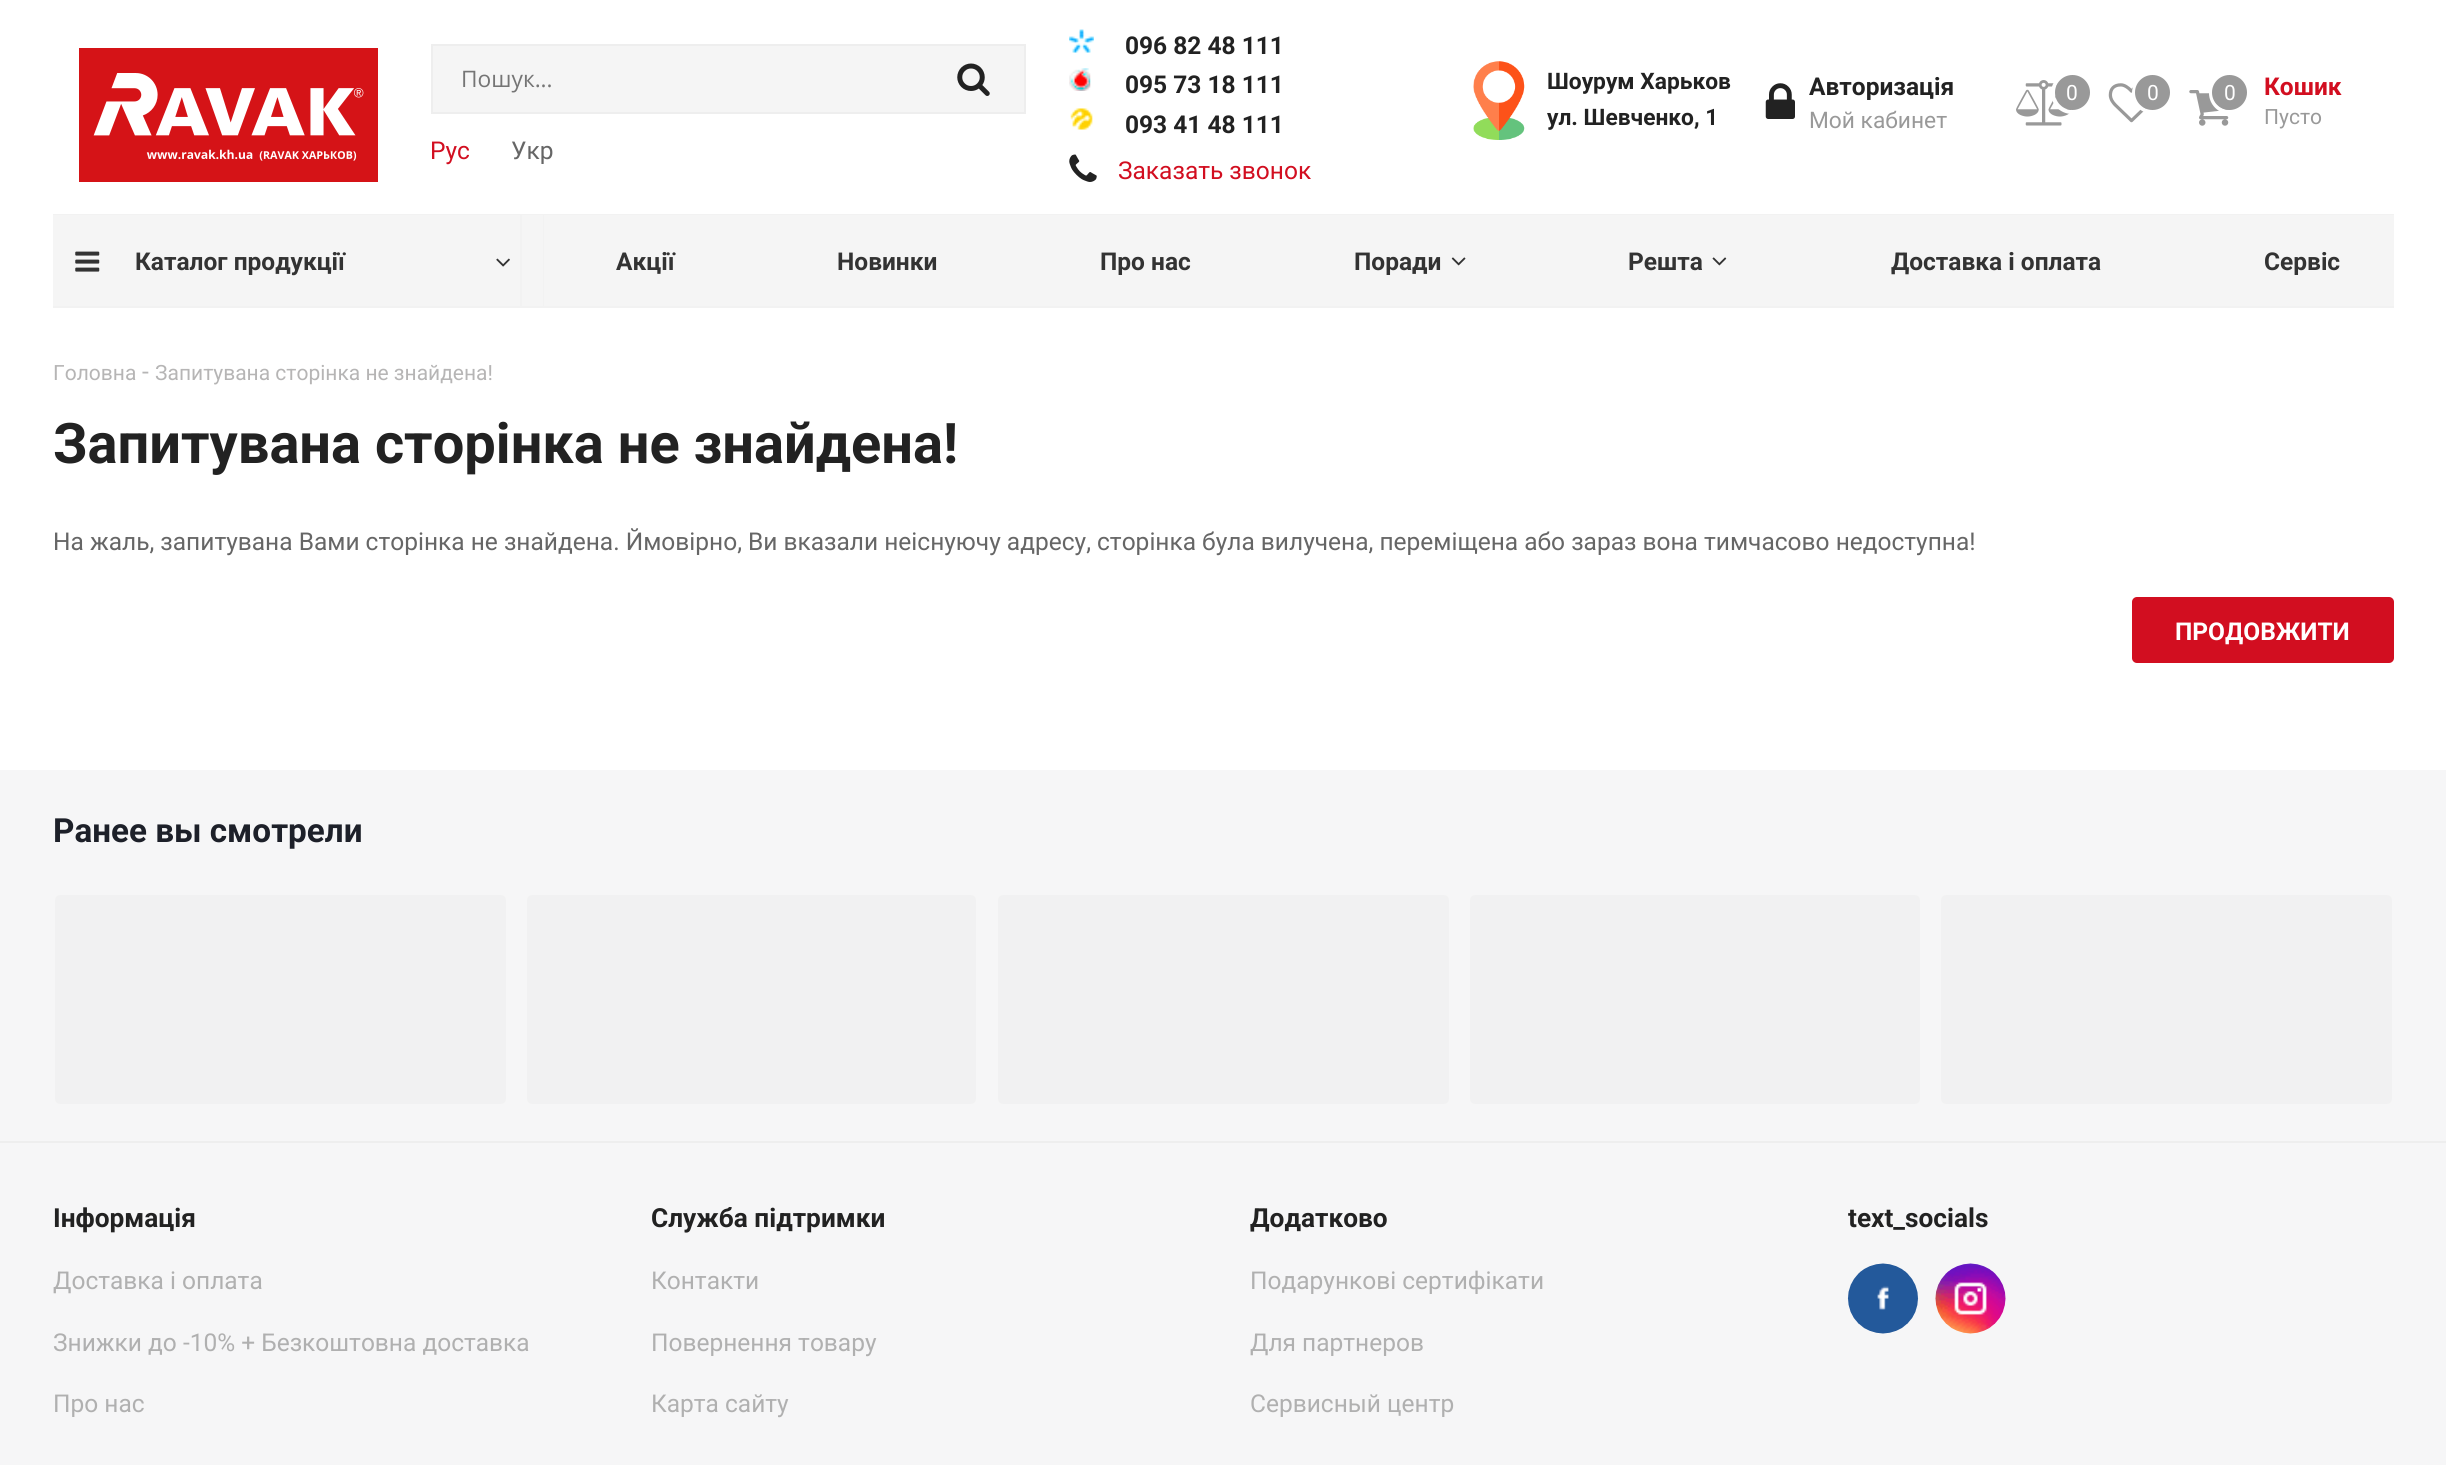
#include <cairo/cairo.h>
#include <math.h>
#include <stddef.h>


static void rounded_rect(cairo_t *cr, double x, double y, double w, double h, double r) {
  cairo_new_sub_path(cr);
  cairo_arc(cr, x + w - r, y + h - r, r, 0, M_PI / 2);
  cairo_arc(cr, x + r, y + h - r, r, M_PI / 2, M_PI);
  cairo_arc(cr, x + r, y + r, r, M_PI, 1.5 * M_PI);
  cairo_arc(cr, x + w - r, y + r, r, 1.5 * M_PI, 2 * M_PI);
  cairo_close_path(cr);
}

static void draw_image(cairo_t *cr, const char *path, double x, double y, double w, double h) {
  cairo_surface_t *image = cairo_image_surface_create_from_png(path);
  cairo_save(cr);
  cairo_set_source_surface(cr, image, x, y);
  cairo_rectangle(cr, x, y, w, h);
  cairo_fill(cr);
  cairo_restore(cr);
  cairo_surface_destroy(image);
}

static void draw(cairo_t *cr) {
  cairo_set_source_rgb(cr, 1, 1, 1);
  cairo_paint(cr);
  draw_image(cr, "images/1.png", 79, 48, 299, 134);
  cairo_set_source_rgb(cr, 245 / 255.0, 245 / 255.0, 245 / 255.0);
  cairo_rectangle(cr, 432, 45, 593, 68);
  cairo_fill_preserve(cr);
  cairo_set_source_rgb(cr, 238 / 255.0, 238 / 255.0, 238 / 255.0);
  cairo_stroke(cr);
  draw_image(cr, "images/2.png", 957, 63, 33, 33);
  draw_image(cr, "images/3.png", 1069, 29, 25, 24);
  draw_image(cr, "images/4.png", 1069, 68, 22, 23);
  draw_image(cr, "images/5.png", 1070, 108, 23, 22);
  draw_image(cr, "images/6.png", 1069, 154, 28, 28);
  draw_image(cr, "images/7.png", 1473, 61, 52, 79);
  draw_image(cr, "images/8.png", 1765, 83, 30, 36);
  draw_image(cr, "images/9.png", 2016, 80, 56, 46);
  cairo_arc(cr, 2072, 93, 19, 0, 2 * M_PI);
  cairo_set_source_rgb(cr, 1, 1, 1);
  cairo_set_line_width(cr, 4);
  cairo_stroke(cr);
  cairo_set_source_rgb(cr, 153 / 255.0, 153 / 255.0, 153 / 255.0);
  cairo_arc(cr, 2072.5, 92.5, 17.5, 0, 2 * M_PI);
  cairo_fill(cr);
  draw_image(cr, "images/10.png", 2108, 83, 39, 40);
  cairo_arc(cr, 2153, 93, 19, 0, 2 * M_PI);
  cairo_set_source_rgb(cr, 1, 1, 1);
  cairo_stroke(cr);
  cairo_set_source_rgb(cr, 153 / 255.0, 153 / 255.0, 153 / 255.0);
  cairo_arc(cr, 2152.5, 92.5, 17.5, 0, 2 * M_PI);
  cairo_fill(cr);
  draw_image(cr, "images/11.png", 2189, 90, 42, 36);
  cairo_arc(cr, 2230, 93, 19, 0, 2 * M_PI);
  cairo_set_source_rgb(cr, 1, 1, 1);
  cairo_stroke(cr);
  cairo_set_source_rgb(cr, 153 / 255.0, 153 / 255.0, 153 / 255.0);
  cairo_arc(cr, 2229.5, 92.5, 17.5, 0, 2 * M_PI);
  cairo_fill(cr);
  cairo_set_source_rgb(cr, 242 / 255.0, 242 / 255.0, 242 / 255.0);
  cairo_rectangle(cr, 53, 214, 2341, 1);
  cairo_fill(cr);
  cairo_rectangle(cr, 53, 306, 2341, 2);
  cairo_fill(cr);
  cairo_set_source_rgb(cr, 245 / 255.0, 245 / 255.0, 245 / 255.0);
  cairo_rectangle(cr, 53, 215, 490, 91);
  cairo_fill(cr);
  cairo_set_source_rgb(cr, 242 / 255.0, 242 / 255.0, 242 / 255.0);
  cairo_rectangle(cr, 543, 215, 1, 91);
  cairo_fill(cr);
  cairo_rectangle(cr, 520, 215, 2, 91);
  cairo_fill(cr);
  draw_image(cr, "images/12.png", 75, 251, 25, 21);
  draw_image(cr, "images/13.png", 496, 258, 14, 9);
  cairo_set_source_rgb(cr, 245 / 255.0, 245 / 255.0, 245 / 255.0);
  cairo_rectangle(cr, 544, 215, 1850, 91);
  cairo_fill(cr);
  draw_image(cr, "images/14.png", 1451, 257, 15, 9);
  draw_image(cr, "images/15.png", 1712, 257, 15, 9);
  cairo_set_source_rgb(cr, 210 / 255.0, 14 / 255.0, 32 / 255.0);
  rounded_rect(cr, 2132, 597, 262, 66, 5);
  cairo_fill(cr);
  cairo_set_source_rgb(cr, 246 / 255.0, 246 / 255.0, 247 / 255.0);
  cairo_rectangle(cr, 0, 770, 2446, 371);
  cairo_fill(cr);
  cairo_set_source_rgb(cr, 238 / 255.0, 238 / 255.0, 238 / 255.0);
  cairo_rectangle(cr, 0, 1141, 2446, 2);
  cairo_fill(cr);
  cairo_set_source_rgb(cr, 241 / 255.0, 241 / 255.0, 242 / 255.0);
  rounded_rect(cr, 54, 894, 453, 211, 6);
  cairo_fill_preserve(cr);
  cairo_set_source_rgb(cr, 246 / 255.0, 246 / 255.0, 247 / 255.0);
  cairo_set_line_width(cr, 2);
  cairo_stroke(cr);
  cairo_set_source_rgb(cr, 241 / 255.0, 241 / 255.0, 242 / 255.0);
  rounded_rect(cr, 526, 894, 451, 211, 6);
  cairo_fill_preserve(cr);
  cairo_set_source_rgb(cr, 246 / 255.0, 246 / 255.0, 247 / 255.0);
  cairo_stroke(cr);
  cairo_set_source_rgb(cr, 241 / 255.0, 241 / 255.0, 242 / 255.0);
  rounded_rect(cr, 997, 894, 453, 211, 6);
  cairo_fill_preserve(cr);
  cairo_set_source_rgb(cr, 246 / 255.0, 246 / 255.0, 247 / 255.0);
  cairo_stroke(cr);
  cairo_set_source_rgb(cr, 241 / 255.0, 241 / 255.0, 242 / 255.0);
  rounded_rect(cr, 1469, 894, 452, 211, 6);
  cairo_fill_preserve(cr);
  cairo_set_source_rgb(cr, 246 / 255.0, 246 / 255.0, 247 / 255.0);
  cairo_stroke(cr);
  cairo_set_source_rgb(cr, 241 / 255.0, 241 / 255.0, 242 / 255.0);
  rounded_rect(cr, 1940, 894, 453, 211, 6);
  cairo_fill_preserve(cr);
  cairo_set_source_rgb(cr, 246 / 255.0, 246 / 255.0, 247 / 255.0);
  cairo_stroke(cr);
  cairo_rectangle(cr, 0, 1143, 2446, 322);
  cairo_fill(cr);
  draw_image(cr, "images/16.png", 1847, 1263, 72, 71);
  draw_image(cr, "images/17.png", 1935, 1263, 71, 71);
  cairo_select_font_face(cr, "Open Sans", CAIRO_FONT_SLANT_NORMAL, CAIRO_FONT_WEIGHT_NORMAL);
  cairo_set_font_size(cr, 22.75);
  cairo_set_source_rgb(cr, 117 / 255.0, 117 / 255.0, 117 / 255.0);
  cairo_move_to(cr, 461, 87);
  cairo_show_text(cr, "Пошук...");
  cairo_select_font_face(cr, "Roboto", CAIRO_FONT_SLANT_NORMAL, CAIRO_FONT_WEIGHT_NORMAL);
  cairo_set_font_size(cr, 24.5);
  cairo_set_source_rgb(cr, 210 / 255.0, 14 / 255.0, 32 / 255.0);
  cairo_move_to(cr, 430, 159);
  cairo_show_text(cr, "Рус");
  cairo_set_source_rgb(cr, 102 / 255.0, 102 / 255.0, 102 / 255.0);
  cairo_move_to(cr, 511, 159);
  cairo_show_text(cr, "Укр");
  cairo_select_font_face(cr, "Roboto", CAIRO_FONT_SLANT_NORMAL, CAIRO_FONT_WEIGHT_BOLD);
  cairo_set_source_rgb(cr, 34 / 255.0, 34 / 255.0, 34 / 255.0);
  cairo_move_to(cr, 1125, 54);
  cairo_show_text(cr, "096 82 48 111");
  cairo_move_to(cr, 1125, 93);
  cairo_show_text(cr, "095 73 18 111");
  cairo_move_to(cr, 1125, 133);
  cairo_show_text(cr, "093 41 48 111");
  cairo_select_font_face(cr, "Roboto", CAIRO_FONT_SLANT_NORMAL, CAIRO_FONT_WEIGHT_NORMAL);
  cairo_set_source_rgb(cr, 210 / 255.0, 14 / 255.0, 32 / 255.0);
  cairo_move_to(cr, 1118, 179);
  cairo_show_text(cr, "Заказать звонок");
  cairo_select_font_face(cr, "Roboto", CAIRO_FONT_SLANT_NORMAL, CAIRO_FONT_WEIGHT_BOLD);
  cairo_set_font_size(cr, 22.75);
  cairo_set_source_rgb(cr, 34 / 255.0, 34 / 255.0, 34 / 255.0);
  cairo_move_to(cr, 1547, 89);
  cairo_show_text(cr, "Шоурум Харьков");
  cairo_move_to(cr, 1547, 125);
  cairo_show_text(cr, "ул. Шевченко, 1");
  cairo_set_font_size(cr, 24.5);
  cairo_move_to(cr, 1809, 95);
  cairo_show_text(cr, "Авторизація");
  cairo_select_font_face(cr, "Roboto", CAIRO_FONT_SLANT_NORMAL, CAIRO_FONT_WEIGHT_NORMAL);
  cairo_set_font_size(cr, 22.75);
  cairo_set_source_rgb(cr, 153 / 255.0, 153 / 255.0, 153 / 255.0);
  cairo_move_to(cr, 1809, 128);
  cairo_show_text(cr, "Мой кабинет");
  cairo_set_font_size(cr, 21);
  cairo_set_source_rgb(cr, 1, 1, 1);
  cairo_move_to(cr, 2066, 100);
  cairo_show_text(cr, "0");
  cairo_move_to(cr, 2147, 100);
  cairo_show_text(cr, "0");
  cairo_move_to(cr, 2224, 100);
  cairo_show_text(cr, "0");
  cairo_select_font_face(cr, "Roboto", CAIRO_FONT_SLANT_NORMAL, CAIRO_FONT_WEIGHT_BOLD);
  cairo_set_font_size(cr, 24.5);
  cairo_set_source_rgb(cr, 210 / 255.0, 14 / 255.0, 32 / 255.0);
  cairo_move_to(cr, 2264, 95);
  cairo_show_text(cr, "Кошик");
  cairo_select_font_face(cr, "Roboto", CAIRO_FONT_SLANT_NORMAL, CAIRO_FONT_WEIGHT_NORMAL);
  cairo_set_font_size(cr, 21);
  cairo_set_source_rgb(cr, 153 / 255.0, 153 / 255.0, 153 / 255.0);
  cairo_move_to(cr, 2264, 124);
  cairo_show_text(cr, "Пусто");
  cairo_select_font_face(cr, "Roboto", CAIRO_FONT_SLANT_NORMAL, CAIRO_FONT_WEIGHT_BOLD);
  cairo_set_font_size(cr, 24.5);
  cairo_set_source_rgb(cr, 51 / 255.0, 51 / 255.0, 51 / 255.0);
  cairo_move_to(cr, 135, 270);
  cairo_show_text(cr, "Каталог продукції");
  cairo_move_to(cr, 616, 270);
  cairo_show_text(cr, "Акції");
  cairo_move_to(cr, 837, 270);
  cairo_show_text(cr, "Новинки");
  cairo_move_to(cr, 1100, 270);
  cairo_show_text(cr, "Про нас");
  cairo_move_to(cr, 1354, 270);
  cairo_show_text(cr, "Поради");
  cairo_move_to(cr, 1628, 270);
  cairo_show_text(cr, "Решта");
  cairo_move_to(cr, 1891, 270);
  cairo_show_text(cr, "Доставка і оплата");
  cairo_move_to(cr, 2264, 270);
  cairo_show_text(cr, "Сервіс");
  cairo_select_font_face(cr, "Roboto", CAIRO_FONT_SLANT_NORMAL, CAIRO_FONT_WEIGHT_NORMAL);
  cairo_set_font_size(cr, 21);
  cairo_set_source_rgb(cr, 182 / 255.0, 181 / 255.0, 181 / 255.0);
  cairo_move_to(cr, 53, 380);
  cairo_show_text(cr, "Головна");
  cairo_set_font_size(cr, 24.5);
  cairo_move_to(cr, 142, 380);
  cairo_show_text(cr, "-");
  cairo_set_font_size(cr, 21);
  cairo_move_to(cr, 155, 380);
  cairo_show_text(cr, "Запитувана сторінка не знайдена!");
  cairo_select_font_face(cr, "Roboto", CAIRO_FONT_SLANT_NORMAL, CAIRO_FONT_WEIGHT_BOLD);
  cairo_set_font_size(cr, 56);
  cairo_set_source_rgb(cr, 34 / 255.0, 34 / 255.0, 34 / 255.0);
  cairo_move_to(cr, 53, 463);
  cairo_show_text(cr, "Запитувана сторінка не знайдена!");
  cairo_select_font_face(cr, "Roboto", CAIRO_FONT_SLANT_NORMAL, CAIRO_FONT_WEIGHT_NORMAL);
  cairo_set_font_size(cr, 24.5);
  cairo_set_source_rgb(cr, 102 / 255.0, 102 / 255.0, 102 / 255.0);
  cairo_move_to(cr, 53, 550);
  cairo_show_text(cr, "На жаль, запитувана Вами сторінка не знайдена. Ймовірно, Ви вказали неіснуючу адресу, сторінка була вилучена, переміщена або зараз вона тимчасово недоступна!");
  cairo_select_font_face(cr, "Roboto", CAIRO_FONT_SLANT_NORMAL, CAIRO_FONT_WEIGHT_BOLD);
  cairo_set_source_rgb(cr, 1, 1, 1);
  cairo_move_to(cr, 2175, 640);
  cairo_show_text(cr, "ПРОДОВЖИТИ");
  cairo_set_font_size(cr, 33.25);
  cairo_set_source_rgb(cr, 29 / 255.0, 32 / 255.0, 41 / 255.0);
  cairo_move_to(cr, 53, 842);
  cairo_show_text(cr, "Ранее вы смотрели");
  cairo_set_font_size(cr, 26.25);
  cairo_set_source_rgb(cr, 34 / 255.0, 34 / 255.0, 34 / 255.0);
  cairo_move_to(cr, 53, 1227);
  cairo_show_text(cr, "Інформація");
  cairo_select_font_face(cr, "Roboto", CAIRO_FONT_SLANT_NORMAL, CAIRO_FONT_WEIGHT_NORMAL);
  cairo_set_font_size(cr, 24.5);
  cairo_set_source_rgb(cr, 176 / 255.0, 176 / 255.0, 176 / 255.0);
  cairo_move_to(cr, 53, 1289);
  cairo_show_text(cr, "Доставка і оплата");
  cairo_move_to(cr, 53, 1351);
  cairo_show_text(cr, "Знижки до -10% + Безкоштовна доставка");
  cairo_move_to(cr, 53, 1412);
  cairo_show_text(cr, "Про нас");
  cairo_select_font_face(cr, "Roboto", CAIRO_FONT_SLANT_NORMAL, CAIRO_FONT_WEIGHT_BOLD);
  cairo_set_font_size(cr, 26.25);
  cairo_set_source_rgb(cr, 34 / 255.0, 34 / 255.0, 34 / 255.0);
  cairo_move_to(cr, 651, 1227);
  cairo_show_text(cr, "Служба підтримки");
  cairo_select_font_face(cr, "Roboto", CAIRO_FONT_SLANT_NORMAL, CAIRO_FONT_WEIGHT_NORMAL);
  cairo_set_font_size(cr, 24.5);
  cairo_set_source_rgb(cr, 176 / 255.0, 176 / 255.0, 176 / 255.0);
  cairo_move_to(cr, 651, 1289);
  cairo_show_text(cr, "Контакти");
  cairo_move_to(cr, 651, 1351);
  cairo_show_text(cr, "Повернення товару");
  cairo_move_to(cr, 651, 1412);
  cairo_show_text(cr, "Карта сайту");
  cairo_select_font_face(cr, "Roboto", CAIRO_FONT_SLANT_NORMAL, CAIRO_FONT_WEIGHT_BOLD);
  cairo_set_font_size(cr, 26.25);
  cairo_set_source_rgb(cr, 34 / 255.0, 34 / 255.0, 34 / 255.0);
  cairo_move_to(cr, 1250, 1227);
  cairo_show_text(cr, "Додатково");
  cairo_select_font_face(cr, "Roboto", CAIRO_FONT_SLANT_NORMAL, CAIRO_FONT_WEIGHT_NORMAL);
  cairo_set_font_size(cr, 24.5);
  cairo_set_source_rgb(cr, 176 / 255.0, 176 / 255.0, 176 / 255.0);
  cairo_move_to(cr, 1250, 1289);
  cairo_show_text(cr, "Подарункові сертифікати");
  cairo_move_to(cr, 1250, 1351);
  cairo_show_text(cr, "Для партнеров");
  cairo_move_to(cr, 1250, 1412);
  cairo_show_text(cr, "Сервисный центр");
  cairo_select_font_face(cr, "Roboto", CAIRO_FONT_SLANT_NORMAL, CAIRO_FONT_WEIGHT_BOLD);
  cairo_set_font_size(cr, 26.25);
  cairo_set_source_rgb(cr, 34 / 255.0, 34 / 255.0, 34 / 255.0);
  cairo_move_to(cr, 1848, 1227);
  cairo_show_text(cr, "text_socials");
}

int main(void) {
  cairo_surface_t *surface = cairo_image_surface_create(CAIRO_FORMAT_RGB24, 2446, 1465);
  cairo_t *cr = cairo_create(surface);
  cairo_font_options_t *options = cairo_font_options_create();
  cairo_font_options_set_hint_metrics(options, CAIRO_HINT_METRICS_OFF);
  cairo_font_options_set_hint_style(options, CAIRO_HINT_STYLE_NONE);
  cairo_set_font_options(cr, options);
  cairo_set_miter_limit(cr, 4);
  draw(cr);
  cairo_surface_write_to_png(surface, "out.png");
  cairo_font_options_destroy(options);
  cairo_destroy(cr);
  cairo_surface_destroy(surface);
  return 0;
}
